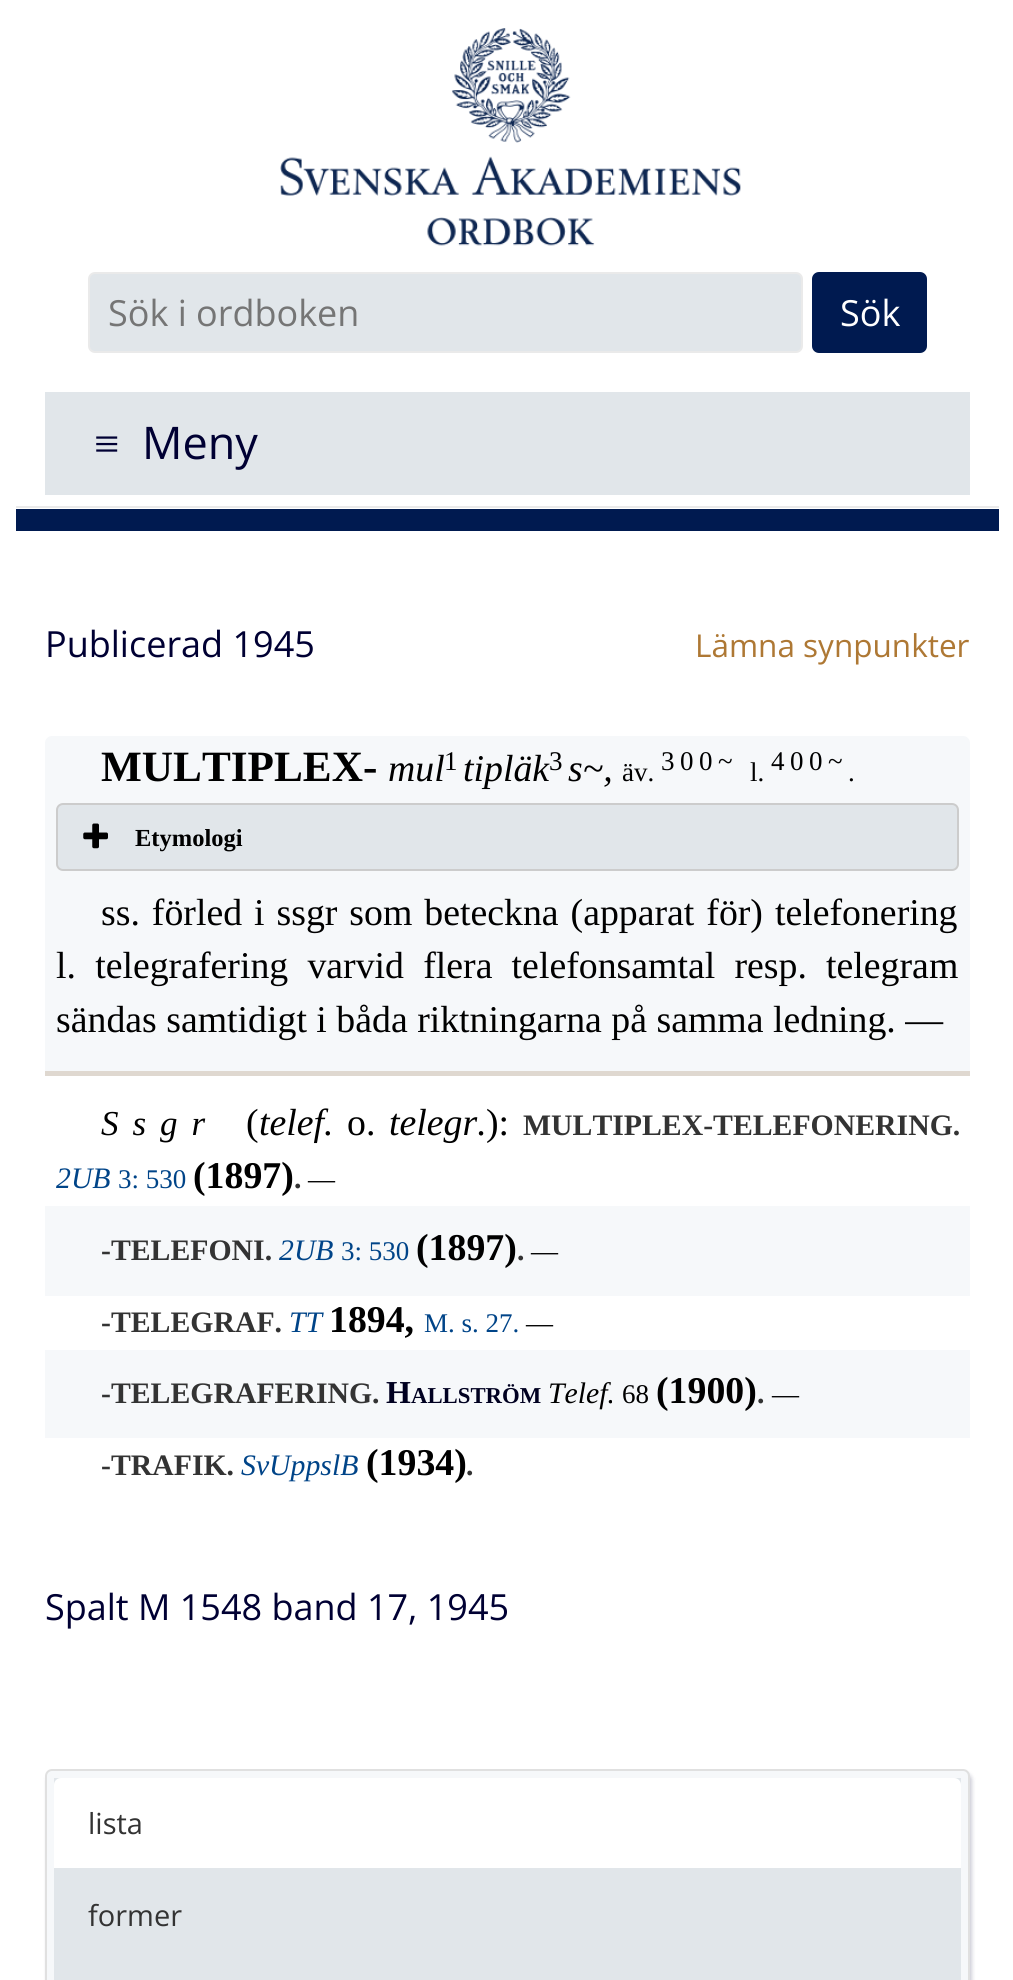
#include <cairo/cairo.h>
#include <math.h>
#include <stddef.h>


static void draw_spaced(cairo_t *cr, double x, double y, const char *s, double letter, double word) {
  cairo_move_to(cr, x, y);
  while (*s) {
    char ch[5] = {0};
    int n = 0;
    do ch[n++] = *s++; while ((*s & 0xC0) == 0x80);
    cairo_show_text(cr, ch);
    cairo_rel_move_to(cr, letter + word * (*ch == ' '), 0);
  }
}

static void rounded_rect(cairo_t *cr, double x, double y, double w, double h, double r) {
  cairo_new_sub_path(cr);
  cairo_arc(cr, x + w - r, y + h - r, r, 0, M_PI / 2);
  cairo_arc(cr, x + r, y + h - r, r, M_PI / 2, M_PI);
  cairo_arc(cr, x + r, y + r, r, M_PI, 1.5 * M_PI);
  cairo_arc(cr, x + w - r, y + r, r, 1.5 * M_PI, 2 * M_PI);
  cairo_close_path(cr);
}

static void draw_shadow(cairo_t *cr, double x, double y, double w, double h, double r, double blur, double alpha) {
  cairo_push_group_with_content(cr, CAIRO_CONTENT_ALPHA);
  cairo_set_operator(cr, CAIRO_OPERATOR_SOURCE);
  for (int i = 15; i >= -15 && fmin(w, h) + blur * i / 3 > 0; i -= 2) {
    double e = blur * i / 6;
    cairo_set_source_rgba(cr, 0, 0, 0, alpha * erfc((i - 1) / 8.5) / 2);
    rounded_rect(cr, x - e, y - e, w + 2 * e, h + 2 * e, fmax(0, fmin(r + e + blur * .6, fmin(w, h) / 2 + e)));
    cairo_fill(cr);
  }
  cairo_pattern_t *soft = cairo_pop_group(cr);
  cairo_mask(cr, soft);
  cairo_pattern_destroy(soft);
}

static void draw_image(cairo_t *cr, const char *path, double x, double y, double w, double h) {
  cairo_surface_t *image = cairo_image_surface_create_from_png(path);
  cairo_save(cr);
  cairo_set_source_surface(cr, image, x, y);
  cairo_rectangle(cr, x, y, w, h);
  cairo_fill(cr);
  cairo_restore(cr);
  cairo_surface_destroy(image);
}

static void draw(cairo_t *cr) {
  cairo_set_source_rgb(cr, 1, 1, 1);
  cairo_paint(cr);
  cairo_set_source_rgb(cr, 234 / 255.0, 234 / 255.0, 234 / 255.0);
  cairo_rectangle(cr, 16, 506, 983, 2);
  cairo_fill(cr);
  draw_image(cr, "images/1.png", 280, 28, 461, 218);
  cairo_set_source_rgb(cr, 225 / 255.0, 230 / 255.0, 234 / 255.0);
  rounded_rect(cr, 89, 273, 713, 79, 6);
  cairo_fill_preserve(cr);
  cairo_set_source_rgb(cr, 234 / 255.0, 234 / 255.0, 234 / 255.0);
  cairo_stroke(cr);
  cairo_set_source_rgb(cr, 0, 26 / 255.0, 80 / 255.0);
  rounded_rect(cr, 812, 272, 115, 81, 7);
  cairo_fill(cr);
  cairo_set_source_rgb(cr, 225 / 255.0, 230 / 255.0, 234 / 255.0);
  cairo_rectangle(cr, 45, 392, 925, 103);
  cairo_fill(cr);
  cairo_set_source_rgb(cr, 0, 26 / 255.0, 80 / 255.0);
  cairo_rectangle(cr, 16, 509, 983, 22);
  cairo_fill(cr);
  cairo_set_source_rgb(cr, 246 / 255.0, 248 / 255.0, 250 / 255.0);
  rounded_rect(cr, 45, 736, 925, 756, 7);
  cairo_fill(cr);
  cairo_set_source_rgb(cr, 225 / 255.0, 230 / 255.0, 234 / 255.0);
  rounded_rect(cr, 57, 804, 901, 66, 6);
  cairo_fill_preserve(cr);
  cairo_set_source_rgb(cr, 204 / 255.0, 204 / 255.0, 204 / 255.0);
  cairo_stroke(cr);
  draw_image(cr, "images/2.png", 83, 823, 25, 26);
  cairo_set_source_rgb(cr, 1, 1, 1);
  cairo_rectangle(cr, 45, 1076, 925, 130);
  cairo_fill(cr);
  cairo_set_source_rgb(cr, 223 / 255.0, 216 / 255.0, 208 / 255.0);
  cairo_rectangle(cr, 45, 1071, 925, 5);
  cairo_fill(cr);
  cairo_set_source_rgb(cr, 1, 1, 1);
  cairo_rectangle(cr, 45, 1296, 925, 54);
  cairo_fill(cr);
  cairo_rectangle(cr, 45, 1438, 925, 54);
  cairo_fill(cr);
  cairo_set_source_rgb(cr, 0, 0, 51 / 255.0);
  draw_shadow(cr, 47, 1773, 925, 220, 7, 2, 0.2);
  cairo_set_source_rgb(cr, 246 / 255.0, 248 / 255.0, 250 / 255.0);
  rounded_rect(cr, 46, 1770, 923, 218, 6);
  cairo_fill_preserve(cr);
  cairo_set_source_rgb(cr, 224 / 255.0, 224 / 255.0, 224 / 255.0);
  cairo_stroke(cr);
  cairo_set_source_rgb(cr, 225 / 255.0, 230 / 255.0, 234 / 255.0);
  cairo_rectangle(cr, 54, 1778, 907, 202);
  cairo_fill(cr);
  cairo_set_source_rgb(cr, 1, 1, 1);
  cairo_new_path(cr);
  cairo_move_to(cr, 61, 1778);
  cairo_line_to(cr, 954, 1778);
  cairo_curve_to(cr, 958, 1778, 961, 1781, 961, 1785);
  cairo_line_to(cr, 961, 1870);
  cairo_line_to(cr, 54, 1870);
  cairo_line_to(cr, 54, 1785);
  cairo_curve_to(cr, 54, 1781, 57, 1778, 61, 1778);
  cairo_close_path(cr);
  cairo_fill(cr);
  cairo_set_source_rgb(cr, 225 / 255.0, 230 / 255.0, 234 / 255.0);
  cairo_rectangle(cr, 54, 1868, 907, 2);
  cairo_fill(cr);
  cairo_select_font_face(cr, "Open Sans", CAIRO_FONT_SLANT_NORMAL, CAIRO_FONT_WEIGHT_NORMAL);
  cairo_set_font_size(cr, 36);
  cairo_set_source_rgb(cr, 117 / 255.0, 117 / 255.0, 117 / 255.0);
  cairo_move_to(cr, 108, 326);
  cairo_show_text(cr, "Sök i ordboken");
  cairo_set_source_rgb(cr, 1, 1, 1);
  cairo_move_to(cr, 840, 326);
  cairo_show_text(cr, "Sök");
  cairo_select_font_face(cr, "Liberation Serif", CAIRO_FONT_SLANT_NORMAL, CAIRO_FONT_WEIGHT_NORMAL);
  cairo_set_font_size(cr, 45);
  cairo_set_source_rgb(cr, 0, 0, 51 / 255.0);
  cairo_move_to(cr, 94, 459);
  cairo_show_text(cr, "≡");
  cairo_select_font_face(cr, "Open Sans", CAIRO_FONT_SLANT_NORMAL, CAIRO_FONT_WEIGHT_NORMAL);
  cairo_move_to(cr, 142, 459);
  cairo_show_text(cr, "Meny");
  cairo_set_font_size(cr, 36);
  cairo_move_to(cr, 45, 657);
  cairo_show_text(cr, "Publicerad 1945");
  cairo_set_font_size(cr, 31.5);
  cairo_set_source_rgb(cr, 174 / 255.0, 120 / 255.0, 52 / 255.0);
  cairo_move_to(cr, 695, 657);
  cairo_show_text(cr, "Lämna synpunkter");
  cairo_select_font_face(cr, "Liberation Serif", CAIRO_FONT_SLANT_NORMAL, CAIRO_FONT_WEIGHT_BOLD);
  cairo_set_font_size(cr, 43.25);
  cairo_set_source_rgb(cr, 0, 0, 0);
  cairo_move_to(cr, 101, 781);
  cairo_show_text(cr, "MULTIPLEX-");
  cairo_select_font_face(cr, "Liberation Serif", CAIRO_FONT_SLANT_ITALIC, CAIRO_FONT_WEIGHT_NORMAL);
  cairo_set_font_size(cr, 37.8);
  cairo_move_to(cr, 388, 781);
  cairo_show_text(cr, "mul");
  cairo_select_font_face(cr, "Liberation Serif", CAIRO_FONT_SLANT_NORMAL, CAIRO_FONT_WEIGHT_NORMAL);
  cairo_set_font_size(cr, 27);
  draw_spaced(cr, 444, 770, "1", 5.5, 0);
  cairo_select_font_face(cr, "Liberation Serif", CAIRO_FONT_SLANT_ITALIC, CAIRO_FONT_WEIGHT_NORMAL);
  cairo_set_font_size(cr, 37.8);
  cairo_move_to(cr, 463, 781);
  cairo_show_text(cr, "tipläk");
  cairo_select_font_face(cr, "Liberation Serif", CAIRO_FONT_SLANT_NORMAL, CAIRO_FONT_WEIGHT_NORMAL);
  cairo_set_font_size(cr, 27);
  draw_spaced(cr, 549, 770, "3", 5.5, 0);
  cairo_select_font_face(cr, "Liberation Serif", CAIRO_FONT_SLANT_ITALIC, CAIRO_FONT_WEIGHT_NORMAL);
  cairo_set_font_size(cr, 37.8);
  cairo_move_to(cr, 568, 781);
  cairo_show_text(cr, "s~,");
  cairo_select_font_face(cr, "Liberation Serif", CAIRO_FONT_SLANT_NORMAL, CAIRO_FONT_WEIGHT_NORMAL);
  cairo_set_font_size(cr, 27);
  cairo_move_to(cr, 622, 781);
  cairo_show_text(cr, "äv.");
  draw_spaced(cr, 661, 770, "300~", 5.5, 0);
  cairo_move_to(cr, 750, 781);
  cairo_show_text(cr, "l.");
  draw_spaced(cr, 771, 770, "400~", 5.5, 0);
  cairo_move_to(cr, 848, 781);
  cairo_show_text(cr, ".");
  cairo_select_font_face(cr, "Liberation Serif", CAIRO_FONT_SLANT_NORMAL, CAIRO_FONT_WEIGHT_BOLD);
  cairo_set_font_size(cr, 24.5);
  cairo_move_to(cr, 135, 846);
  cairo_show_text(cr, "Etymologi");
  cairo_select_font_face(cr, "Liberation Serif", CAIRO_FONT_SLANT_NORMAL, CAIRO_FONT_WEIGHT_NORMAL);
  cairo_set_font_size(cr, 37.8);
  draw_spaced(cr, 101, 925, "ss. förled i ssgr som beteckna (apparat för) telefonering", 0, 2.5);
  draw_spaced(cr, 56, 978, "l. telegrafering varvid flera telefonsamtal resp. telegram", 0, 9.75);
  cairo_move_to(cr, 56, 1032);
  cairo_show_text(cr, "sändas samtidigt i båda riktningarna på samma ledning. —");
  cairo_select_font_face(cr, "Liberation Serif", CAIRO_FONT_SLANT_ITALIC, CAIRO_FONT_WEIGHT_NORMAL);
  cairo_set_font_size(cr, 35);
  draw_spaced(cr, 101, 1135, "Ssgr", 14, 0);
  cairo_select_font_face(cr, "Liberation Serif", CAIRO_FONT_SLANT_NORMAL, CAIRO_FONT_WEIGHT_NORMAL);
  cairo_set_font_size(cr, 37.8);
  cairo_move_to(cr, 246, 1135);
  cairo_show_text(cr, "(");
  cairo_select_font_face(cr, "Liberation Serif", CAIRO_FONT_SLANT_ITALIC, CAIRO_FONT_WEIGHT_NORMAL);
  cairo_move_to(cr, 259, 1135);
  cairo_show_text(cr, "telef.");
  cairo_select_font_face(cr, "Liberation Serif", CAIRO_FONT_SLANT_NORMAL, CAIRO_FONT_WEIGHT_NORMAL);
  cairo_move_to(cr, 347, 1135);
  cairo_show_text(cr, "o.");
  cairo_select_font_face(cr, "Liberation Serif", CAIRO_FONT_SLANT_ITALIC, CAIRO_FONT_WEIGHT_NORMAL);
  cairo_move_to(cr, 389, 1135);
  cairo_show_text(cr, "telegr.");
  cairo_select_font_face(cr, "Liberation Serif", CAIRO_FONT_SLANT_NORMAL, CAIRO_FONT_WEIGHT_NORMAL);
  cairo_move_to(cr, 486, 1135);
  cairo_show_text(cr, "):");
  cairo_select_font_face(cr, "Liberation Serif", CAIRO_FONT_SLANT_NORMAL, CAIRO_FONT_WEIGHT_BOLD);
  cairo_set_font_size(cr, 29.75);
  cairo_set_source_rgb(cr, 51 / 255.0, 51 / 255.0, 51 / 255.0);
  cairo_move_to(cr, 523, 1135);
  cairo_show_text(cr, "MULTIPLEX-TELEFONERING.");
  cairo_select_font_face(cr, "Liberation Serif", CAIRO_FONT_SLANT_ITALIC, CAIRO_FONT_WEIGHT_NORMAL);
  cairo_set_source_rgb(cr, 0, 68 / 255.0, 136 / 255.0);
  cairo_move_to(cr, 56, 1188);
  cairo_show_text(cr, "2UB");
  cairo_select_font_face(cr, "Liberation Serif", CAIRO_FONT_SLANT_NORMAL, CAIRO_FONT_WEIGHT_NORMAL);
  cairo_set_font_size(cr, 27);
  cairo_move_to(cr, 118, 1188);
  cairo_show_text(cr, "3: 530");
  cairo_select_font_face(cr, "Liberation Serif", CAIRO_FONT_SLANT_NORMAL, CAIRO_FONT_WEIGHT_BOLD);
  cairo_set_font_size(cr, 37.8);
  cairo_set_source_rgb(cr, 0, 0, 0);
  cairo_move_to(cr, 193, 1188);
  cairo_show_text(cr, "(1897)");
  cairo_select_font_face(cr, "Liberation Serif", CAIRO_FONT_SLANT_NORMAL, CAIRO_FONT_WEIGHT_NORMAL);
  cairo_set_font_size(cr, 27);
  cairo_move_to(cr, 308, 1188);
  cairo_show_text(cr, "—");
  cairo_select_font_face(cr, "Liberation Serif", CAIRO_FONT_SLANT_NORMAL, CAIRO_FONT_WEIGHT_BOLD);
  cairo_set_font_size(cr, 29.75);
  cairo_set_source_rgb(cr, 51 / 255.0, 51 / 255.0, 51 / 255.0);
  cairo_move_to(cr, 294, 1188);
  cairo_show_text(cr, ".");
  cairo_move_to(cr, 101, 1260);
  cairo_show_text(cr, "-TELEFONI.");
  cairo_select_font_face(cr, "Liberation Serif", CAIRO_FONT_SLANT_ITALIC, CAIRO_FONT_WEIGHT_NORMAL);
  cairo_set_source_rgb(cr, 0, 68 / 255.0, 136 / 255.0);
  cairo_move_to(cr, 279, 1260);
  cairo_show_text(cr, "2UB");
  cairo_select_font_face(cr, "Liberation Serif", CAIRO_FONT_SLANT_NORMAL, CAIRO_FONT_WEIGHT_NORMAL);
  cairo_set_font_size(cr, 27);
  cairo_move_to(cr, 341, 1260);
  cairo_show_text(cr, "3: 530");
  cairo_select_font_face(cr, "Liberation Serif", CAIRO_FONT_SLANT_NORMAL, CAIRO_FONT_WEIGHT_BOLD);
  cairo_set_font_size(cr, 37.8);
  cairo_set_source_rgb(cr, 0, 0, 0);
  cairo_move_to(cr, 416, 1260);
  cairo_show_text(cr, "(1897)");
  cairo_select_font_face(cr, "Liberation Serif", CAIRO_FONT_SLANT_NORMAL, CAIRO_FONT_WEIGHT_NORMAL);
  cairo_set_font_size(cr, 27);
  cairo_move_to(cr, 531, 1260);
  cairo_show_text(cr, "—");
  cairo_select_font_face(cr, "Liberation Serif", CAIRO_FONT_SLANT_NORMAL, CAIRO_FONT_WEIGHT_BOLD);
  cairo_set_font_size(cr, 29.75);
  cairo_set_source_rgb(cr, 51 / 255.0, 51 / 255.0, 51 / 255.0);
  cairo_move_to(cr, 517, 1260);
  cairo_show_text(cr, ".");
  cairo_move_to(cr, 101, 1332);
  cairo_show_text(cr, "-TELEGRAF.");
  cairo_select_font_face(cr, "Liberation Serif", CAIRO_FONT_SLANT_ITALIC, CAIRO_FONT_WEIGHT_NORMAL);
  cairo_set_source_rgb(cr, 0, 68 / 255.0, 136 / 255.0);
  cairo_move_to(cr, 289, 1332);
  cairo_show_text(cr, "TT");
  cairo_select_font_face(cr, "Liberation Serif", CAIRO_FONT_SLANT_NORMAL, CAIRO_FONT_WEIGHT_BOLD);
  cairo_set_font_size(cr, 37.8);
  cairo_set_source_rgb(cr, 0, 0, 0);
  cairo_move_to(cr, 329, 1332);
  cairo_show_text(cr, "1894,");
  cairo_select_font_face(cr, "Liberation Serif", CAIRO_FONT_SLANT_NORMAL, CAIRO_FONT_WEIGHT_NORMAL);
  cairo_set_font_size(cr, 27);
  cairo_set_source_rgb(cr, 0, 68 / 255.0, 136 / 255.0);
  cairo_move_to(cr, 424, 1332);
  cairo_show_text(cr, "M. s. 27.");
  cairo_set_source_rgb(cr, 0, 0, 0);
  cairo_move_to(cr, 526, 1332);
  cairo_show_text(cr, "—");
  cairo_select_font_face(cr, "Liberation Serif", CAIRO_FONT_SLANT_NORMAL, CAIRO_FONT_WEIGHT_BOLD);
  cairo_set_font_size(cr, 29.75);
  cairo_set_source_rgb(cr, 51 / 255.0, 51 / 255.0, 51 / 255.0);
  cairo_move_to(cr, 101, 1403);
  cairo_show_text(cr, "-TELEGRAFERING.");
  cairo_set_font_size(cr, 32);
  cairo_set_source_rgb(cr, 0, 0, 32 / 255.0);
  cairo_move_to(cr, 386, 1403);
  cairo_show_text(cr, "H");
  cairo_set_font_size(cr, 22.75);
  cairo_move_to(cr, 411, 1403);
  cairo_show_text(cr, "ALLSTRÖM");
  cairo_select_font_face(cr, "Liberation Serif", CAIRO_FONT_SLANT_ITALIC, CAIRO_FONT_WEIGHT_NORMAL);
  cairo_set_font_size(cr, 29.75);
  cairo_set_source_rgb(cr, 0, 0, 0);
  cairo_move_to(cr, 548, 1403);
  cairo_show_text(cr, "Telef.");
  cairo_select_font_face(cr, "Liberation Serif", CAIRO_FONT_SLANT_NORMAL, CAIRO_FONT_WEIGHT_NORMAL);
  cairo_set_font_size(cr, 27);
  cairo_move_to(cr, 622, 1403);
  cairo_show_text(cr, "68");
  cairo_select_font_face(cr, "Liberation Serif", CAIRO_FONT_SLANT_NORMAL, CAIRO_FONT_WEIGHT_BOLD);
  cairo_set_font_size(cr, 37.8);
  cairo_move_to(cr, 656, 1403);
  cairo_show_text(cr, "(1900)");
  cairo_select_font_face(cr, "Liberation Serif", CAIRO_FONT_SLANT_NORMAL, CAIRO_FONT_WEIGHT_NORMAL);
  cairo_set_font_size(cr, 27);
  cairo_move_to(cr, 772, 1403);
  cairo_show_text(cr, "—");
  cairo_select_font_face(cr, "Liberation Serif", CAIRO_FONT_SLANT_NORMAL, CAIRO_FONT_WEIGHT_BOLD);
  cairo_set_font_size(cr, 29.75);
  cairo_set_source_rgb(cr, 51 / 255.0, 51 / 255.0, 51 / 255.0);
  cairo_move_to(cr, 757, 1403);
  cairo_show_text(cr, ".");
  cairo_move_to(cr, 101, 1475);
  cairo_show_text(cr, "-TRAFIK.");
  cairo_select_font_face(cr, "Liberation Serif", CAIRO_FONT_SLANT_ITALIC, CAIRO_FONT_WEIGHT_NORMAL);
  cairo_set_source_rgb(cr, 0, 68 / 255.0, 136 / 255.0);
  cairo_move_to(cr, 241, 1475);
  cairo_show_text(cr, "SvUppslB");
  cairo_select_font_face(cr, "Liberation Serif", CAIRO_FONT_SLANT_NORMAL, CAIRO_FONT_WEIGHT_BOLD);
  cairo_set_font_size(cr, 37.8);
  cairo_set_source_rgb(cr, 0, 0, 0);
  cairo_move_to(cr, 366, 1475);
  cairo_show_text(cr, "(1934)");
  cairo_set_font_size(cr, 29.75);
  cairo_set_source_rgb(cr, 51 / 255.0, 51 / 255.0, 51 / 255.0);
  cairo_move_to(cr, 466, 1475);
  cairo_show_text(cr, ".");
  cairo_select_font_face(cr, "Open Sans", CAIRO_FONT_SLANT_NORMAL, CAIRO_FONT_WEIGHT_NORMAL);
  cairo_set_font_size(cr, 36);
  cairo_set_source_rgb(cr, 0, 0, 51 / 255.0);
  cairo_move_to(cr, 45, 1620);
  cairo_show_text(cr, "Spalt M 1548 band 17, 1945");
  cairo_set_font_size(cr, 29);
  cairo_set_source_rgb(cr, 51 / 255.0, 51 / 255.0, 51 / 255.0);
  cairo_move_to(cr, 88, 1834);
  cairo_show_text(cr, "lista");
  cairo_move_to(cr, 88, 1926);
  cairo_show_text(cr, "former");
}

int main(void) {
  cairo_surface_t *surface = cairo_image_surface_create(CAIRO_FORMAT_RGB24, 1013, 1980);
  cairo_t *cr = cairo_create(surface);
  cairo_font_options_t *options = cairo_font_options_create();
  cairo_font_options_set_hint_metrics(options, CAIRO_HINT_METRICS_OFF);
  cairo_font_options_set_hint_style(options, CAIRO_HINT_STYLE_NONE);
  cairo_set_font_options(cr, options);
  cairo_set_miter_limit(cr, 4);
  draw(cr);
  cairo_surface_write_to_png(surface, "out.png");
  cairo_font_options_destroy(options);
  cairo_destroy(cr);
  cairo_surface_destroy(surface);
  return 0;
}
